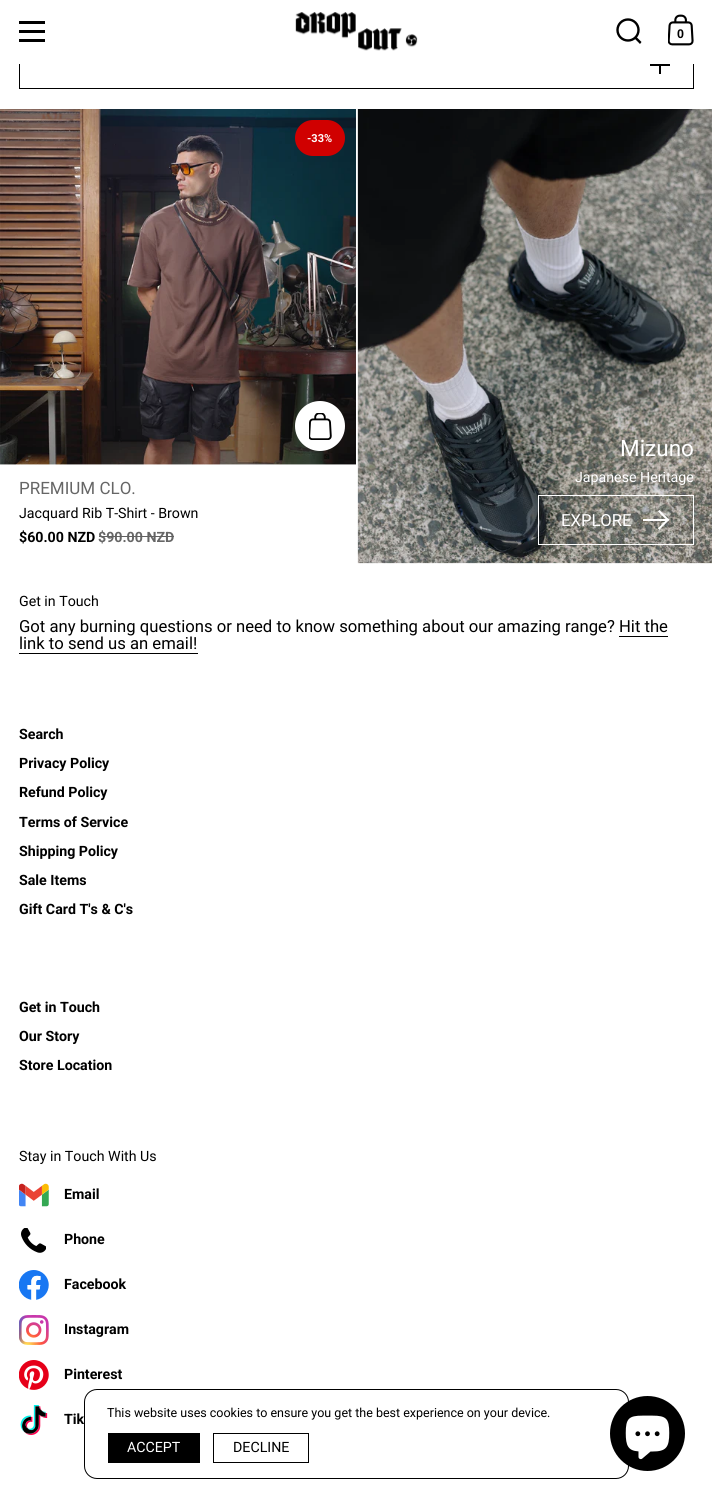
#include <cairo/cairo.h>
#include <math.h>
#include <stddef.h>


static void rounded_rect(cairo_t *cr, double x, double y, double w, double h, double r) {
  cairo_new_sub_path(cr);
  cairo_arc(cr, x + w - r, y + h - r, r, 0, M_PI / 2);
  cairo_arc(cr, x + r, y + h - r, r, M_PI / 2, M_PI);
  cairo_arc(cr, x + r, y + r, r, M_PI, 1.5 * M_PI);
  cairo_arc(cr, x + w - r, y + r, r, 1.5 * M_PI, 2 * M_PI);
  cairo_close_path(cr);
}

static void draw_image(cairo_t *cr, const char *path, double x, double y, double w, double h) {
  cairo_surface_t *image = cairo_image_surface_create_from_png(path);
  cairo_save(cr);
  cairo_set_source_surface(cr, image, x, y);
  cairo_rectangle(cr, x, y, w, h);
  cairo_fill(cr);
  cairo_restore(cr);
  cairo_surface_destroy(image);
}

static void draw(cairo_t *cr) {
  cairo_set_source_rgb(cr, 1, 1, 1);
  cairo_paint(cr);
  cairo_rectangle(cr, 19.5, 39.5, 674, 49);
  cairo_set_source_rgb(cr, 0, 0, 0);
  cairo_set_line_width(cr, 1);
  cairo_stroke(cr);
  cairo_set_source_rgb(cr, 1, 1, 1);
  cairo_rectangle(cr, 19, 39, 675, 25);
  cairo_fill(cr);
  cairo_set_source_rgb(cr, 0, 0, 0);
  cairo_rectangle(cr, 19, 21, 26, 3);
  cairo_fill(cr);
  cairo_rectangle(cr, 19, 30, 26, 3);
  cairo_fill(cr);
  cairo_rectangle(cr, 19, 39, 26, 3);
  cairo_fill(cr);
  draw_image(cr, "images/1.png", 295, 12, 123, 39);
  cairo_arc(cr, 628, 30, 10.5, 0, 2 * M_PI);
  cairo_set_line_width(cr, 2.4);
  cairo_stroke(cr);
  cairo_new_path(cr);
  cairo_move_to(cr, 634.5, 38.5);
  cairo_line_to(cr, 636, 36.5);
  cairo_line_to(cr, 641.5, 42);
  cairo_line_to(cr, 640, 44);
  cairo_close_path(cr);
  cairo_fill(cr);
  draw_image(cr, "images/2.png", 668, 14, 26, 32);
  cairo_rectangle(cr, 650, 64, 20, 2);
  cairo_fill(cr);
  cairo_rectangle(cr, 659, 64, 2, 10);
  cairo_fill(cr);
  draw_image(cr, "images/3.png", 0, 109, 356, 356);
  cairo_set_source_rgb(cr, 1, 1, 1);
  cairo_arc(cr, 320, 426, 25, 0, 2 * M_PI);
  cairo_fill(cr);
  draw_image(cr, "images/4.png", 309, 413, 23, 27);
  cairo_set_source_rgb(cr, 208 / 255.0, 0, 0);
  rounded_rect(cr, 295, 120, 50, 36, 18);
  cairo_fill(cr);
  draw_image(cr, "images/5.png", 357, 109, 355, 455);
  cairo_rectangle(cr, 538.5, 495.5, 155, 49);
  cairo_set_source_rgb(cr, 1, 1, 1);
  cairo_set_line_width(cr, 1);
  cairo_stroke(cr);
  draw_image(cr, "images/6.png", 643, 510, 27, 20);
  cairo_set_source_rgb(cr, 0, 0, 0);
  cairo_rectangle(cr, 619, 636, 49, 1);
  cairo_fill(cr);
  cairo_rectangle(cr, 19, 653, 179, 1);
  cairo_fill(cr);
  draw_image(cr, "images/7.png", 19, 1183, 30, 24);
  draw_image(cr, "images/8.png", 21, 1228, 25, 25);
  draw_image(cr, "images/9.png", 19, 1270, 30, 30);
  draw_image(cr, "images/10.png", 19, 1315, 30, 30);
  draw_image(cr, "images/11.png", 19, 1360, 30, 30);
  draw_image(cr, "images/12.png", 20, 1405, 28, 30);
  rounded_rect(cr, 84.5, 1389.5, 544, 89, 12.5);
  cairo_stroke(cr);
  cairo_rectangle(cr, 108, 1433, 92, 30);
  cairo_fill(cr);
  cairo_rectangle(cr, 213.5, 1433.5, 95, 29);
  cairo_stroke(cr);
  cairo_arc(cr, 647.5, 1433.5, 37.5, 0, 2 * M_PI);
  cairo_fill(cr);
  draw_image(cr, "images/13.png", 625, 1415, 45, 45);
  cairo_select_font_face(cr, "Liberation Sans", CAIRO_FONT_SLANT_NORMAL, CAIRO_FONT_WEIGHT_BOLD);
  cairo_set_font_size(cr, 12.5);
  cairo_move_to(cr, 677, 38);
  cairo_show_text(cr, "0");
  cairo_select_font_face(cr, "Roboto", CAIRO_FONT_SLANT_NORMAL, CAIRO_FONT_WEIGHT_BOLD);
  cairo_set_font_size(cr, 11);
  cairo_set_source_rgb(cr, 1, 1, 1);
  cairo_move_to(cr, 307, 142);
  cairo_show_text(cr, "-33%");
  cairo_select_font_face(cr, "Roboto", CAIRO_FONT_SLANT_NORMAL, CAIRO_FONT_WEIGHT_NORMAL);
  cairo_set_font_size(cr, 17);
  cairo_set_source_rgb(cr, 102 / 255.0, 102 / 255.0, 102 / 255.0);
  cairo_move_to(cr, 19, 494);
  cairo_show_text(cr, "PREMIUM CLO.");
  cairo_set_font_size(cr, 14.2);
  cairo_set_source_rgb(cr, 0, 0, 0);
  cairo_move_to(cr, 19, 518);
  cairo_show_text(cr, "Jacquard Rib T-Shirt - Brown");
  cairo_select_font_face(cr, "Roboto", CAIRO_FONT_SLANT_NORMAL, CAIRO_FONT_WEIGHT_BOLD);
  cairo_move_to(cr, 19, 542);
  cairo_show_text(cr, "$60.00 NZD");
  cairo_set_source_rgb(cr, 102 / 255.0, 102 / 255.0, 102 / 255.0);
  cairo_move_to(cr, 98, 542);
  cairo_show_text(cr, "$90.00 NZD");
  cairo_set_source_rgb(cr, 97 / 255.0, 97 / 255.0, 97 / 255.0);
  cairo_rectangle(cr, 99, 536, 75, 1);
  cairo_fill(cr);
  cairo_select_font_face(cr, "Roboto", CAIRO_FONT_SLANT_NORMAL, CAIRO_FONT_WEIGHT_NORMAL);
  cairo_set_font_size(cr, 22.5);
  cairo_set_source_rgb(cr, 1, 1, 1);
  cairo_move_to(cr, 620, 456);
  cairo_show_text(cr, "Mizuno");
  cairo_set_font_size(cr, 14.2);
  cairo_move_to(cr, 575, 482);
  cairo_show_text(cr, "Japanese Heritage");
  cairo_set_font_size(cr, 16.65);
  cairo_move_to(cr, 561, 526);
  cairo_show_text(cr, "EXPLORE");
  cairo_set_font_size(cr, 14.2);
  cairo_set_source_rgb(cr, 0, 0, 0);
  cairo_move_to(cr, 19, 606);
  cairo_show_text(cr, "Get in Touch");
  cairo_set_font_size(cr, 16.65);
  cairo_move_to(cr, 19, 632);
  cairo_show_text(cr, "Got any burning questions or need to know something about our amazing range? Hit the");
  cairo_move_to(cr, 19, 649);
  cairo_show_text(cr, "link to send us an email!");
  cairo_select_font_face(cr, "Roboto", CAIRO_FONT_SLANT_NORMAL, CAIRO_FONT_WEIGHT_BOLD);
  cairo_set_font_size(cr, 14.2);
  cairo_move_to(cr, 19, 739);
  cairo_show_text(cr, "Search");
  cairo_move_to(cr, 19, 768);
  cairo_show_text(cr, "Privacy Policy");
  cairo_move_to(cr, 19, 797);
  cairo_show_text(cr, "Refund Policy");
  cairo_move_to(cr, 19, 827);
  cairo_show_text(cr, "Terms of Service");
  cairo_move_to(cr, 19, 856);
  cairo_show_text(cr, "Shipping Policy");
  cairo_move_to(cr, 19, 885);
  cairo_show_text(cr, "Sale Items");
  cairo_move_to(cr, 19, 914);
  cairo_show_text(cr, "Gift Card T's & C's");
  cairo_move_to(cr, 19, 1012);
  cairo_show_text(cr, "Get in Touch");
  cairo_move_to(cr, 19, 1041);
  cairo_show_text(cr, "Our Story");
  cairo_move_to(cr, 19, 1070);
  cairo_show_text(cr, "Store Location");
  cairo_select_font_face(cr, "Roboto", CAIRO_FONT_SLANT_NORMAL, CAIRO_FONT_WEIGHT_NORMAL);
  cairo_move_to(cr, 19, 1161);
  cairo_show_text(cr, "Stay in Touch With Us");
  cairo_select_font_face(cr, "Roboto", CAIRO_FONT_SLANT_NORMAL, CAIRO_FONT_WEIGHT_BOLD);
  cairo_move_to(cr, 64, 1199);
  cairo_show_text(cr, "Email");
  cairo_move_to(cr, 64, 1244);
  cairo_show_text(cr, "Phone");
  cairo_move_to(cr, 64, 1289);
  cairo_show_text(cr, "Facebook");
  cairo_move_to(cr, 64, 1334);
  cairo_show_text(cr, "Instagram");
  cairo_move_to(cr, 64, 1379);
  cairo_show_text(cr, "Pinterest");
  cairo_move_to(cr, 64, 1424);
  cairo_show_text(cr, "Tik");
  cairo_select_font_face(cr, "Roboto", CAIRO_FONT_SLANT_NORMAL, CAIRO_FONT_WEIGHT_NORMAL);
  cairo_set_font_size(cr, 12.5);
  cairo_move_to(cr, 107, 1417);
  cairo_show_text(cr, "This website uses cookies to ensure you get the best experience on your device.");
  cairo_set_font_size(cr, 14.2);
  cairo_set_source_rgb(cr, 1, 1, 1);
  cairo_move_to(cr, 127, 1452);
  cairo_show_text(cr, "ACCEPT");
  cairo_set_source_rgb(cr, 0, 0, 0);
  cairo_move_to(cr, 233, 1452);
  cairo_show_text(cr, "DECLINE");
}

int main(void) {
  cairo_surface_t *surface = cairo_image_surface_create(CAIRO_FORMAT_RGB24, 712, 1497);
  cairo_t *cr = cairo_create(surface);
  cairo_font_options_t *options = cairo_font_options_create();
  cairo_font_options_set_hint_metrics(options, CAIRO_HINT_METRICS_OFF);
  cairo_font_options_set_hint_style(options, CAIRO_HINT_STYLE_NONE);
  cairo_set_font_options(cr, options);
  cairo_set_miter_limit(cr, 4);
  draw(cr);
  cairo_surface_write_to_png(surface, "out.png");
  cairo_font_options_destroy(options);
  cairo_destroy(cr);
  cairo_surface_destroy(surface);
  return 0;
}
